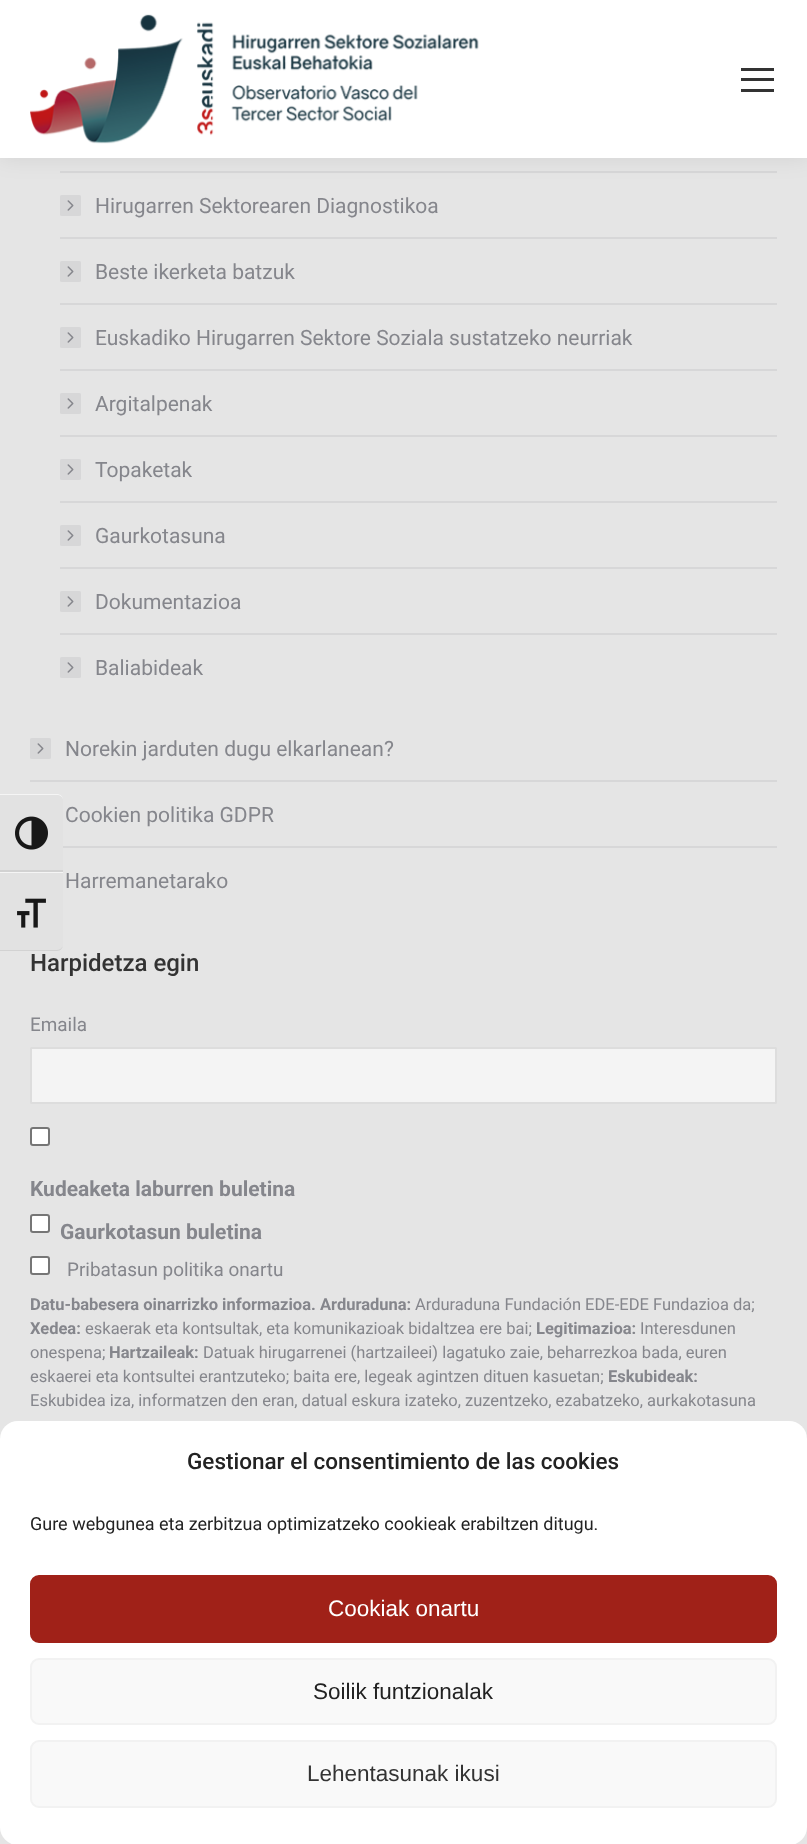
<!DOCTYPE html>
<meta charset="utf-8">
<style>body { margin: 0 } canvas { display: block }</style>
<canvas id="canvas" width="807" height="1844"></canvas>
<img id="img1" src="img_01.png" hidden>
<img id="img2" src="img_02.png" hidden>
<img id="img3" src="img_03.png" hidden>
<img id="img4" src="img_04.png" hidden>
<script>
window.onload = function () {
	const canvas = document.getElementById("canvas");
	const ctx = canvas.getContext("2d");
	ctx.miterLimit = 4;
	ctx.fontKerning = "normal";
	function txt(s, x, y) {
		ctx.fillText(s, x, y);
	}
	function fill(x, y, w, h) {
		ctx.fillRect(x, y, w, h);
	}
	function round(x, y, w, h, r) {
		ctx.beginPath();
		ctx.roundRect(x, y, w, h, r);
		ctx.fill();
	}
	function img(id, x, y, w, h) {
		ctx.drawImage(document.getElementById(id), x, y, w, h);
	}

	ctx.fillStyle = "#E5E5E5";
	fill(0, 0, 807, 1844);
	ctx.fillStyle = "#D7D7D8";
	fill(60, 171, 717, 2);
	ctx.fillStyle = "rgba(0, 0, 0, 0.07)";
	ctx.filter = "blur(11px)";
	ctx.beginPath();
	ctx.rect(-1, -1, 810, 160);
	ctx.fill();
	ctx.filter = "none";
	ctx.fillStyle = "#FFFFFF";
	fill(0, 0, 807, 158);
	img("img1", 30, 14, 449, 130);
	ctx.fillStyle = "#333333";
	fill(741, 68, 33, 3);
	fill(741, 78, 33, 3);
	fill(741, 89, 33, 3);
	ctx.fillStyle = "#D7D7D8";
	round(60, 195, 21, 21, 1.5);
	img("img2", 67, 200, 7, 11);
	fill(60, 237, 717, 2);
	round(60, 261, 21, 21, 1.5);
	img("img2", 67, 266, 7, 11);
	fill(60, 303, 717, 2);
	round(60, 327, 21, 21, 1.5);
	img("img2", 67, 332, 7, 11);
	fill(60, 369, 717, 2);
	round(60, 393, 21, 21, 1.5);
	img("img2", 67, 398, 7, 11);
	fill(60, 435, 717, 2);
	round(60, 459, 21, 21, 1.5);
	img("img2", 67, 464, 7, 11);
	fill(60, 501, 717, 2);
	round(60, 525, 21, 21, 1.5);
	img("img2", 67, 530, 7, 11);
	fill(60, 567, 717, 2);
	round(60, 591, 21, 21, 1.5);
	img("img2", 67, 596, 7, 11);
	fill(60, 633, 717, 2);
	round(60, 657, 21, 21, 1.5);
	img("img2", 67, 662, 7, 11);
	round(30, 738, 21, 21, 1.5);
	img("img2", 37, 743, 7, 11);
	fill(30, 780, 747, 2);
	fill(63, 846, 714, 2);
	ctx.fillStyle = "#F4F4F4";
	ctx.beginPath();
	ctx.roundRect(31, 1048, 745, 55, 0.5);
	ctx.fill();
	ctx.strokeStyle = "#DDDDDD";
	ctx.lineWidth = 2;
	ctx.stroke();
	ctx.fillStyle = "#FFFFFF";
	ctx.beginPath();
	ctx.roundRect(31, 1128, 18, 17, 2);
	ctx.fill();
	ctx.strokeStyle = "#767676";
	ctx.stroke();
	ctx.beginPath();
	ctx.roundRect(31, 1215, 18, 17, 2);
	ctx.fill();
	ctx.stroke();
	ctx.beginPath();
	ctx.roundRect(31, 1257, 18, 17, 2);
	ctx.fill();
	ctx.stroke();
	ctx.fillStyle = "#E2E2E2";
	ctx.beginPath();
	ctx.roundRect(0, 794, 63, 78, [0, 6, 0, 0]);
	ctx.fill();
	ctx.fillStyle = "#F5F5F5";
	ctx.beginPath();
	ctx.moveTo(0, 795);
	ctx.lineTo(57, 795);
	ctx.bezierCurveTo(60, 795, 63, 797, 63, 800);
	ctx.bezierCurveTo(63, 796, 60, 794, 57, 794);
	ctx.lineTo(0, 794);
	ctx.closePath();
	ctx.fill();
	ctx.fillStyle = "#D2D2D2";
	fill(0, 870, 63, 2);
	img("img3", 15, 816, 33, 34);
	ctx.fillStyle = "#E2E2E2";
	ctx.beginPath();
	ctx.roundRect(0, 872, 63, 79, [0, 0, 6, 0]);
	ctx.fill();
	ctx.fillStyle = "#F5F5F5";
	fill(0, 872, 63, 1);
	ctx.fillStyle = "#D2D2D2";
	ctx.beginPath();
	ctx.moveTo(0, 950);
	ctx.lineTo(0, 951);
	ctx.lineTo(57, 951);
	ctx.bezierCurveTo(60, 951, 63, 948, 63, 945);
	ctx.bezierCurveTo(63, 947, 60, 950, 57, 950);
	ctx.closePath();
	ctx.fill();
	img("img4", 17, 898, 29, 30);
	ctx.fillStyle = "#FFFFFF";
	round(0, 1421, 807, 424, 18);
	ctx.fillStyle = "#A02118";
	ctx.beginPath();
	ctx.roundRect(31, 1576, 745, 66, 8);
	ctx.fill();
	ctx.strokeStyle = "#A02118";
	ctx.stroke();
	ctx.fillStyle = "#F9F9F9";
	ctx.beginPath();
	ctx.roundRect(31, 1659, 745, 65, 8);
	ctx.fill();
	ctx.strokeStyle = "#F2F2F2";
	ctx.stroke();
	ctx.beginPath();
	ctx.roundRect(31, 1741, 745, 66, 8);
	ctx.fill();
	ctx.stroke();
	ctx.font = "21px Roboto";
	ctx.fillStyle = "#85868C";
	txt("Hirugarren Sektorearen Diagnostikoa", 95, 213);
	txt("Beste ikerketa batzuk", 95, 279);
	txt("Euskadiko Hirugarren Sektore Soziala sustatzeko neurriak", 95, 345);
	txt("Argitalpenak", 95, 411);
	txt("Topaketak", 95, 477);
	txt("Gaurkotasuna", 95, 543);
	txt("Dokumentazioa", 95, 609);
	txt("Baliabideak", 95, 675);
	txt("Norekin jarduten dugu elkarlanean?", 65, 756);
	txt("Cookien politika GDPR", 65, 822);
	txt("Harremanetarako", 65, 888);
	ctx.font = "500 24px Roboto";
	ctx.fillStyle = "#333333";
	txt("Harpidetza egin", 30, 971);
	ctx.font = "18.9px Roboto";
	ctx.fillStyle = "#85868C";
	txt("Emaila", 30, 1031);
	ctx.font = "bold 21px Roboto";
	txt("Kudeaketa laburren buletina", 30, 1196);
	txt("Gaurkotasun buletina", 60, 1239);
	ctx.font = "18.9px Roboto";
	txt("Pribatasun politika onartu", 67, 1276);
	ctx.font = "bold 16.5px Roboto";
	txt("Datu-babesera oinarrizko informazioa. Arduraduna:", 30, 1310);
	ctx.font = "16.5px Roboto";
	txt("Arduraduna Fundación EDE-EDE Fundazioa da;", 415, 1310);
	ctx.font = "bold 16.5px Roboto";
	txt("Xedea:", 30, 1334);
	ctx.font = "16.5px Roboto";
	txt("eskaerak eta kontsultak, eta komunikazioak bidaltzea ere bai;", 85, 1334);
	ctx.font = "bold 16.5px Roboto";
	txt("Legitimazioa:", 536, 1334);
	ctx.font = "16.5px Roboto";
	txt("Interesdunen", 640, 1334);
	txt("onespena;", 30, 1358);
	ctx.font = "bold 16.5px Roboto";
	txt("Hartzaileak:", 109, 1358);
	ctx.font = "16.5px Roboto";
	txt("Datuak hirugarrenei (hartzaileei) lagatuko zaie, beharrezkoa bada, euren", 203, 1358);
	txt("eskaerei eta kontsultei erantzuteko; baita ere, legeak agintzen dituen kasuetan;", 30, 1382);
	ctx.font = "bold 16.5px Roboto";
	txt("Eskubideak:", 608, 1382);
	ctx.font = "16.5px Roboto";
	txt("Eskubidea iza, informatzen den eran, datual eskura izateko, zuzentzeko, ezabatzeko, aurkakotasuna", 30, 1406);
	ctx.font = "500 22.5px Roboto";
	ctx.fillStyle = "#222222";
	txt("Gestionar el consentimiento de las cookies", 187, 1469);
	ctx.font = "18px Roboto";
	txt("Gure webgunea eta zerbitzua optimizatzeko cookieak erabiltzen ditugu.", 30, 1530);
	ctx.font = "22.5px Liberation Sans";
	ctx.fillStyle = "#FFFFFF";
	txt("Cookiak onartu", 328, 1616);
	ctx.fillStyle = "#222222";
	txt("Soilik funtzionalak", 313, 1699);
	ctx.fillStyle = "#333333";
	txt("Lehentasunak ikusi", 307, 1781);
};
</script>
